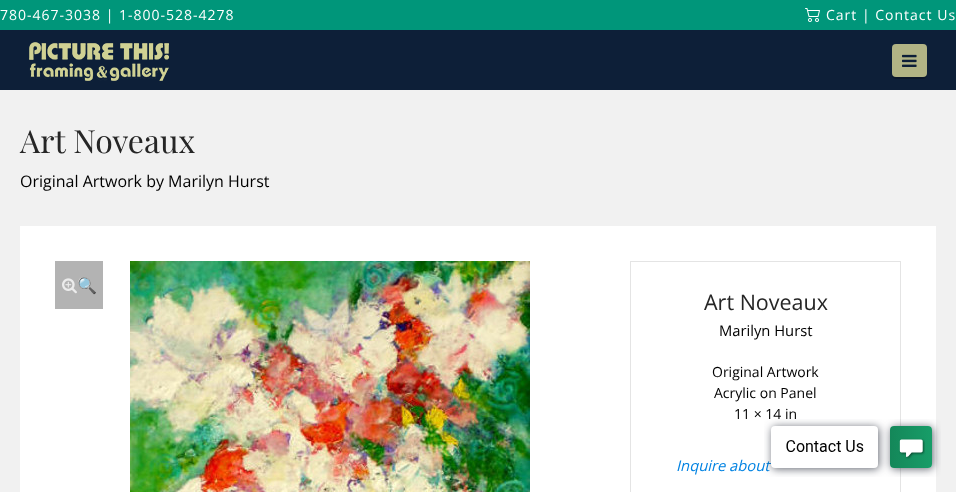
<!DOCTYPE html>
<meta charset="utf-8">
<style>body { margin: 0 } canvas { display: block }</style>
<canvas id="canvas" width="956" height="492"></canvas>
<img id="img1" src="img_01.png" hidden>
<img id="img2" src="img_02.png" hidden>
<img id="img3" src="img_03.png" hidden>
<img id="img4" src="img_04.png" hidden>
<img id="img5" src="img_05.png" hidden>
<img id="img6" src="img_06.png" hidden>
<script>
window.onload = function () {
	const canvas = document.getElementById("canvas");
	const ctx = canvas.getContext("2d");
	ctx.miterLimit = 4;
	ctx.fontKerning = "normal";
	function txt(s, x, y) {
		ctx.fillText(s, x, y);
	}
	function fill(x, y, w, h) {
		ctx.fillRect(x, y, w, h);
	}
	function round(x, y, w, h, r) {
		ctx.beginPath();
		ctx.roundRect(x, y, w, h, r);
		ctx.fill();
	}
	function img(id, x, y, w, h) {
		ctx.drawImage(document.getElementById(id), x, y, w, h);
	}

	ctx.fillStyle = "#F1F1F1";
	fill(0, 0, 956, 492);
	ctx.fillStyle = "#00967A";
	fill(0, 0, 956, 30);
	img("img1", 805, 8, 15, 14);
	ctx.fillStyle = "#0D1F38";
	fill(0, 30, 956, 60);
	img("img2", 29, 42, 140, 39);
	ctx.fillStyle = "#0A172A";
	ctx.beginPath();
	ctx.moveTo(892, 73);
	ctx.bezierCurveTo(892, 79.5, 894.5, 79, 900.5, 79);
	ctx.lineTo(918.5, 79);
	ctx.bezierCurveTo(924.5, 79, 927, 79.5, 927, 73);
	ctx.bezierCurveTo(927, 75, 925, 77, 923, 77);
	ctx.lineTo(896, 77);
	ctx.bezierCurveTo(894, 77, 892, 75, 892, 73);
	ctx.closePath();
	ctx.fill();
	ctx.fillStyle = "#B1B485";
	round(892, 44, 35, 33, 4);
	img("img3", 902, 54, 15, 13);
	ctx.fillStyle = "#FFFFFF";
	fill(20, 226, 916, 266);
	ctx.fillStyle = "#B3B3B3";
	fill(55, 261, 48, 48);
	img("img4", 62, 278, 15, 16);
	img("img5", 130, 261, 400, 231);
	ctx.strokeStyle = "#E4E4E4";
	ctx.strokeRect(630.5, 261.5, 270, 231);
	ctx.letterSpacing = "1px";
	ctx.font = "14px Open Sans";
	ctx.fillStyle = "#FFFFFF";
	txt("780-467-3038 | 1-800-528-4278", 0, 20);
	txt("Cart | Contact Us", 826, 20);
	ctx.letterSpacing = "0px";
	ctx.font = "32px Playfair Display";
	ctx.fillStyle = "#262626";
	txt("Art Noveaux", 20, 153);
	ctx.font = "16px Open Sans";
	ctx.fillStyle = "#000000";
	txt("Original Artwork by Marilyn Hurst", 20, 187);
	ctx.font = "16px Noto Color Emoji";
	ctx.fillStyle = "#ECECEC";
	txt("🔍", 77, 291);
	ctx.font = "21.5px Open Sans";
	ctx.fillStyle = "#262626";
	txt("Art Noveaux", 704, 310);
	ctx.font = "14.75px Open Sans";
	ctx.fillStyle = "#000000";
	txt("Marilyn Hurst", 719, 336);
	ctx.font = "14px Open Sans";
	txt("Original Artwork", 712, 377);
	txt("Acrylic on Panel", 714, 398);
	txt("11 × 14 in", 734, 419);
	ctx.font = "italic 14.75px Open Sans";
	ctx.fillStyle = "#0082E2";
	txt("Inquire about", 676, 471);
	img("img6", 764, 419, 177, 58);
};
</script>
